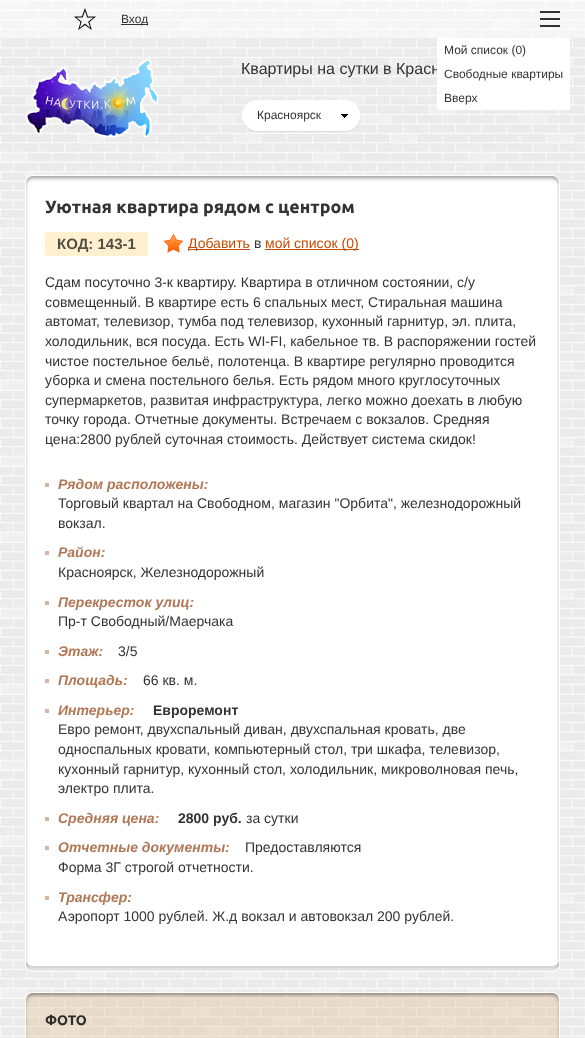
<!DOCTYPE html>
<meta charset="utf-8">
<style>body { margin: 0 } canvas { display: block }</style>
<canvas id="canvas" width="585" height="1038"></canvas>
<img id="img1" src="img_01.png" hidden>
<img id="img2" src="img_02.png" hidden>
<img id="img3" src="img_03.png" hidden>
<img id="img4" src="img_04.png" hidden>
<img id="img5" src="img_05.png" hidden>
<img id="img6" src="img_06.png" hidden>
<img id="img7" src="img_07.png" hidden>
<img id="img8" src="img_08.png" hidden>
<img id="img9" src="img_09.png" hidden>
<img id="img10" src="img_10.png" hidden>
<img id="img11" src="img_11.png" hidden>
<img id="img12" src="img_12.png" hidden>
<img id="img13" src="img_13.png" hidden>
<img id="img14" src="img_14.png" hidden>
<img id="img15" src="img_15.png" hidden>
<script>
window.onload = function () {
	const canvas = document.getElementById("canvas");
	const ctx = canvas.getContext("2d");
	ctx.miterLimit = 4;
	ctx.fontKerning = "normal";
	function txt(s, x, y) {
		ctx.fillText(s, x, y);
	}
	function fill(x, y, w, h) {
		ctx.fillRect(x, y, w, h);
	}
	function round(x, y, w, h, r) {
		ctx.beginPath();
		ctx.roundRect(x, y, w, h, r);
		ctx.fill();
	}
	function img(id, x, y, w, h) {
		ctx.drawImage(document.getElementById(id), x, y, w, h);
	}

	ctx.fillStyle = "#FFFFFF";
	fill(0, 0, 585, 1038);
	img("img1", 0, 0, 585, 1038);
	ctx.fillStyle = "rgba(255, 255, 255, 0.5)";
	fill(0, 0, 585, 38);
	img("img2", 74, 8, 22, 22);
	ctx.fillStyle = "#333333";
	fill(121, 24, 27, 1);
	fill(540, 11, 20, 2);
	fill(540, 18, 20, 2);
	fill(540, 25, 20, 2);
	img("img3", 0, 38, 585, 1);
	img("img4", 25, 58, 134, 80);
	img("img5", 242, 100, 15, 32);
	img("img6", 341, 100, 19, 32);
	img("img7", 257, 100, 84, 32);
	img("img8", 25, 189, 535, 773);
	img("img9", 25, 175, 535, 14);
	ctx.fillStyle = "#FFFFFF";
	fill(29, 189, 527, 773);
	img("img10", 25, 962, 535, 10);
	ctx.fillStyle = "#FFF1CF";
	round(45, 232, 103, 24, 2);
	img("img11", 163, 233, 20, 20);
	ctx.fillStyle = "#C74C00";
	fill(188, 249, 62, 1);
	fill(265, 249, 94, 1);
	ctx.fillStyle = "#D5B5A3";
	fill(45, 483, 4, 4);
	fill(45, 551, 4, 4);
	fill(45, 601, 4, 4);
	fill(45, 650, 4, 4);
	fill(45, 679, 4, 4);
	fill(45, 709, 4, 4);
	fill(45, 817, 4, 4);
	fill(45, 846, 4, 4);
	fill(45, 896, 4, 4);
	img("img12", 25, 992, 535, 13);
	img("img13", 35, 992, 515, 13);
	img("img14", 25, 1005, 535, 33);
	img("img15", 35, 1005, 515, 33);
	ctx.font = "12px Liberation Sans";
	ctx.fillStyle = "#333333";
	txt("Вход", 121, 23);
	ctx.font = "16px Liberation Sans";
	txt("Квартиры на сутки в Красн", 241, 74);
	ctx.fillStyle = "#FFFFFF";
	fill(437, 38, 133, 72);
	ctx.font = "12px Liberation Sans";
	ctx.fillStyle = "#333333";
	txt("Вверх", 444, 102);
	txt("Свободные квартиры", 444, 78);
	txt("Мой список (0)", 444, 54);
	txt("Красноярск", 257, 119);
	ctx.font = "bold 18px Ubuntu";
	txt("Уютная квартира рядом с центром", 45, 213);
	ctx.font = "bold 15px Liberation Sans";
	ctx.fillStyle = "#544F44";
	txt("КОД: 143-1", 57, 249);
	ctx.font = "14px Liberation Sans";
	ctx.fillStyle = "#C74C00";
	txt("Добавить", 188, 248);
	ctx.fillStyle = "#333333";
	txt("в", 254, 248);
	ctx.fillStyle = "#C74C00";
	txt("мой список (0)", 265, 248);
	ctx.fillStyle = "#333333";
	txt("Сдам посуточно 3-к квартиру. Квартира в отличном состоянии, с/у", 45, 287);
	txt("совмещенный. В квартире есть 6 спальных мест, Стиральная машина", 45, 307);
	txt("автомат, телевизор, тумба под телевизор, кухонный гарнитур, эл. плита,", 45, 326);
	txt("холодильник, вся посуда. Есть WI-FI, кабельное тв. В распоряжении гостей", 45, 346);
	txt("чистое постельное бельё, полотенца. В квартире регулярно проводится", 45, 366);
	txt("уборка и смена постельного белья. Есть рядом много круглосуточных", 45, 385);
	txt("супермаркетов, развитая инфраструктура, легко можно доехать в любую", 45, 405);
	txt("точку города. Отчетные документы. Встречаем с вокзалов. Средняя", 45, 424);
	txt("цена:2800 рублей суточная стоимость. Действует система скидок!", 45, 444);
	ctx.font = "italic bold 14px Liberation Sans";
	ctx.fillStyle = "#B17755";
	txt("Рядом расположены:", 58, 489);
	ctx.font = "14px Liberation Sans";
	ctx.fillStyle = "#333333";
	txt("Торговый квартал на Свободном, магазин \"Орбита\", железнодорожный", 58, 508);
	txt("вокзал.", 58, 528);
	ctx.font = "italic bold 14px Liberation Sans";
	ctx.fillStyle = "#B17755";
	txt("Район:", 58, 557);
	ctx.font = "14px Liberation Sans";
	ctx.fillStyle = "#333333";
	txt("Красноярск, Железнодорожный", 58, 577);
	ctx.font = "italic bold 14px Liberation Sans";
	ctx.fillStyle = "#B17755";
	txt("Перекресток улиц:", 58, 607);
	ctx.font = "14px Liberation Sans";
	ctx.fillStyle = "#333333";
	txt("Пр-т Свободный/Маерчака", 58, 626);
	ctx.font = "italic bold 14px Liberation Sans";
	ctx.fillStyle = "#B17755";
	txt("Этаж:", 58, 656);
	ctx.font = "14px Liberation Sans";
	ctx.fillStyle = "#333333";
	txt("3/5", 118, 656);
	ctx.font = "italic bold 14px Liberation Sans";
	ctx.fillStyle = "#B17755";
	txt("Площадь:", 58, 685);
	ctx.font = "14px Liberation Sans";
	ctx.fillStyle = "#333333";
	txt("66 кв. м.", 143, 685);
	ctx.font = "italic bold 14px Liberation Sans";
	ctx.fillStyle = "#B17755";
	txt("Интерьер:", 58, 715);
	ctx.font = "bold 14px Liberation Sans";
	ctx.fillStyle = "#333333";
	txt("Евроремонт", 153, 715);
	ctx.font = "14px Liberation Sans";
	txt("Евро ремонт, двухспальный диван, двухспальная кровать, две", 58, 734);
	txt("односпальных кровати, компьютерный стол, три шкафа, телевизор,", 58, 754);
	txt("кухонный гарнитур, кухонный стол, холодильник, микроволновая печь,", 58, 774);
	txt("электро плита.", 58, 793);
	ctx.font = "italic bold 14px Liberation Sans";
	ctx.fillStyle = "#B17755";
	txt("Средняя цена:", 58, 823);
	ctx.font = "bold 14px Liberation Sans";
	ctx.fillStyle = "#333333";
	txt("2800 руб.", 178, 823);
	ctx.font = "14px Liberation Sans";
	txt("за сутки", 246, 823);
	ctx.font = "italic bold 14px Liberation Sans";
	ctx.fillStyle = "#B17755";
	txt("Отчетные документы:", 58, 852);
	ctx.font = "14px Liberation Sans";
	ctx.fillStyle = "#333333";
	txt("Предоставляются", 245, 852);
	txt("Форма 3Г строгой отчетности.", 58, 872);
	ctx.font = "italic bold 14px Liberation Sans";
	ctx.fillStyle = "#B17755";
	txt("Трансфер:", 58, 902);
	ctx.font = "14px Liberation Sans";
	ctx.fillStyle = "#333333";
	txt("Аэропорт 1000 рублей. Ж.д вокзал и автовокзал 200 рублей.", 58, 921);
	ctx.font = "bold 14px Ubuntu";
	ctx.fillStyle = "#2E2C29";
	txt("ФОТО", 45, 1025);
};
</script>
